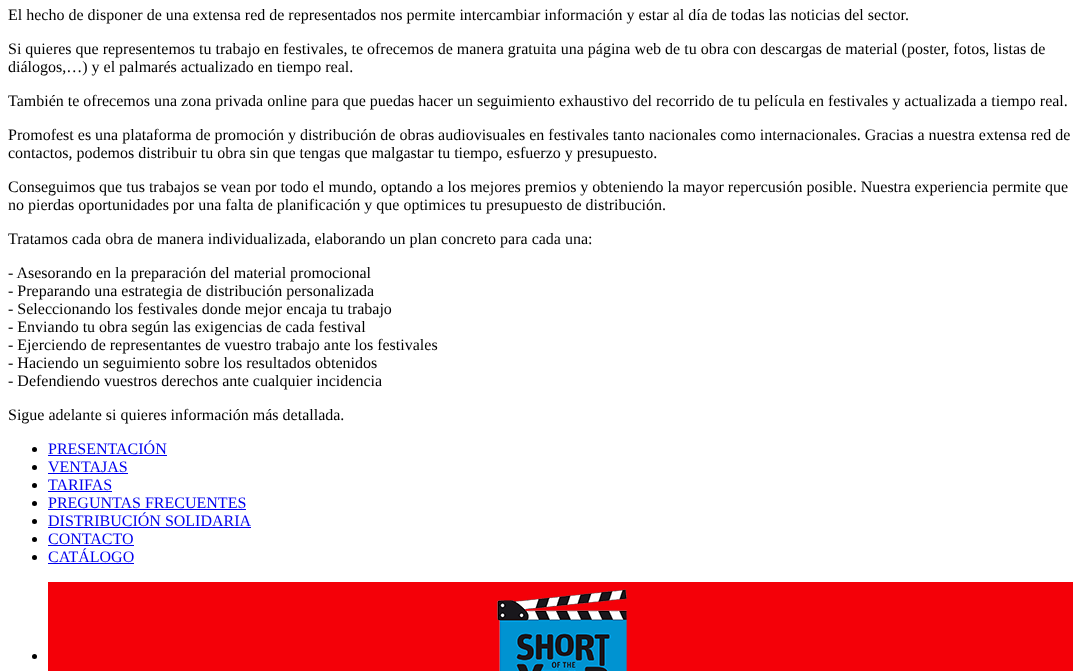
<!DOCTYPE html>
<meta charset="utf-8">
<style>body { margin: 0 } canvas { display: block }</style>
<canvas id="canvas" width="1081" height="671"></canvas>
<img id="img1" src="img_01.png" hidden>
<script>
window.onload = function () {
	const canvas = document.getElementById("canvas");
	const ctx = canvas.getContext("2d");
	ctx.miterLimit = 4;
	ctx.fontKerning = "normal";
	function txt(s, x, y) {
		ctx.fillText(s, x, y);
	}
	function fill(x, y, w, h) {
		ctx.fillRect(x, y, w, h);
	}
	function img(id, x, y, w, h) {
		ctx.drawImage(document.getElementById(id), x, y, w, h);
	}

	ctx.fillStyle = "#FFFFFF";
	fill(0, 0, 1081, 671);
	ctx.fillStyle = "#000000";
	ctx.beginPath();
	ctx.arc(34.5, 449.5, 2.5, 0, Math.PI * 2);
	ctx.fill();
	ctx.fillStyle = "#0000EE";
	fill(48, 455, 119, 1);
	ctx.fillStyle = "#000000";
	ctx.beginPath();
	ctx.arc(34.5, 467.5, 2.5, 0, Math.PI * 2);
	ctx.fill();
	ctx.fillStyle = "#0000EE";
	fill(48, 473, 80, 1);
	ctx.fillStyle = "#000000";
	ctx.beginPath();
	ctx.arc(34.5, 485.5, 2.5, 0, Math.PI * 2);
	ctx.fill();
	ctx.fillStyle = "#0000EE";
	fill(48, 491, 64, 1);
	ctx.fillStyle = "#000000";
	ctx.beginPath();
	ctx.arc(34.5, 503.5, 2.5, 0, Math.PI * 2);
	ctx.fill();
	ctx.fillStyle = "#0000EE";
	fill(48, 509, 198, 1);
	ctx.fillStyle = "#000000";
	ctx.beginPath();
	ctx.arc(34.5, 521.5, 2.5, 0, Math.PI * 2);
	ctx.fill();
	ctx.fillStyle = "#0000EE";
	fill(48, 527, 203, 1);
	ctx.fillStyle = "#000000";
	ctx.beginPath();
	ctx.arc(34.5, 539.5, 2.5, 0, Math.PI * 2);
	ctx.fill();
	ctx.fillStyle = "#0000EE";
	fill(48, 545, 86, 1);
	ctx.fillStyle = "#000000";
	ctx.beginPath();
	ctx.arc(34.5, 557.5, 2.5, 0, Math.PI * 2);
	ctx.fill();
	ctx.fillStyle = "#0000EE";
	fill(48, 563, 86, 1);
	ctx.fillStyle = "#F40008";
	fill(48, 582, 1025, 89);
	ctx.fillStyle = "#000000";
	ctx.beginPath();
	ctx.arc(34.5, 656.5, 2.5, 0, Math.PI * 2);
	ctx.fill();
	img("img1", 497, 589, 130, 82);
	ctx.font = "16px Liberation Serif";
	txt("El hecho de disponer de una extensa red de representados nos permite intercambiar información y estar al día de todas las noticias del sector.", 8, 20);
	txt("Si quieres que representemos tu trabajo en festivales, te ofrecemos de manera gratuita una página web de tu obra con descargas de material (poster, fotos, listas de", 8, 54);
	txt("diálogos,…) y el palmarés actualizado en tiempo real.", 8, 72);
	txt("También te ofrecemos una zona privada online para que puedas hacer un seguimiento exhaustivo del recorrido de tu película en festivales y actualizada a tiempo real.", 8, 106);
	txt("Promofest es una plataforma de promoción y distribución de obras audiovisuales en festivales tanto nacionales como internacionales. Gracias a nuestra extensa red de", 8, 140);
	txt("contactos, podemos distribuir tu obra sin que tengas que malgastar tu tiempo, esfuerzo y presupuesto.", 8, 158);
	txt("Conseguimos que tus trabajos se vean por todo el mundo, optando a los mejores premios y obteniendo la mayor repercusión posible. Nuestra experiencia permite que", 8, 192);
	txt("no pierdas oportunidades por una falta de planificación y que optimices tu presupuesto de distribución.", 8, 210);
	txt("Tratamos cada obra de manera individualizada, elaborando un plan concreto para cada una:", 8, 244);
	txt("- Asesorando en la preparación del material promocional", 8, 278);
	txt("- Preparando una estrategia de distribución personalizada", 8, 296);
	txt("- Seleccionando los festivales donde mejor encaja tu trabajo", 8, 314);
	txt("- Enviando tu obra según las exigencias de cada festival", 8, 332);
	txt("- Ejerciendo de representantes de vuestro trabajo ante los festivales", 8, 350);
	txt("- Haciendo un seguimiento sobre los resultados obtenidos", 8, 368);
	txt("- Defendiendo vuestros derechos ante cualquier incidencia", 8, 386);
	txt("Sigue adelante si quieres información más detallada.", 8, 420);
	ctx.fillStyle = "#0000EE";
	txt("PRESENTACIÓN", 48, 454);
	txt("VENTAJAS", 48, 472);
	txt("TARIFAS", 48, 490);
	txt("PREGUNTAS FRECUENTES", 48, 508);
	txt("DISTRIBUCIÓN SOLIDARIA", 48, 526);
	txt("CONTACTO", 48, 544);
	txt("CATÁLOGO", 48, 562);
};
</script>
